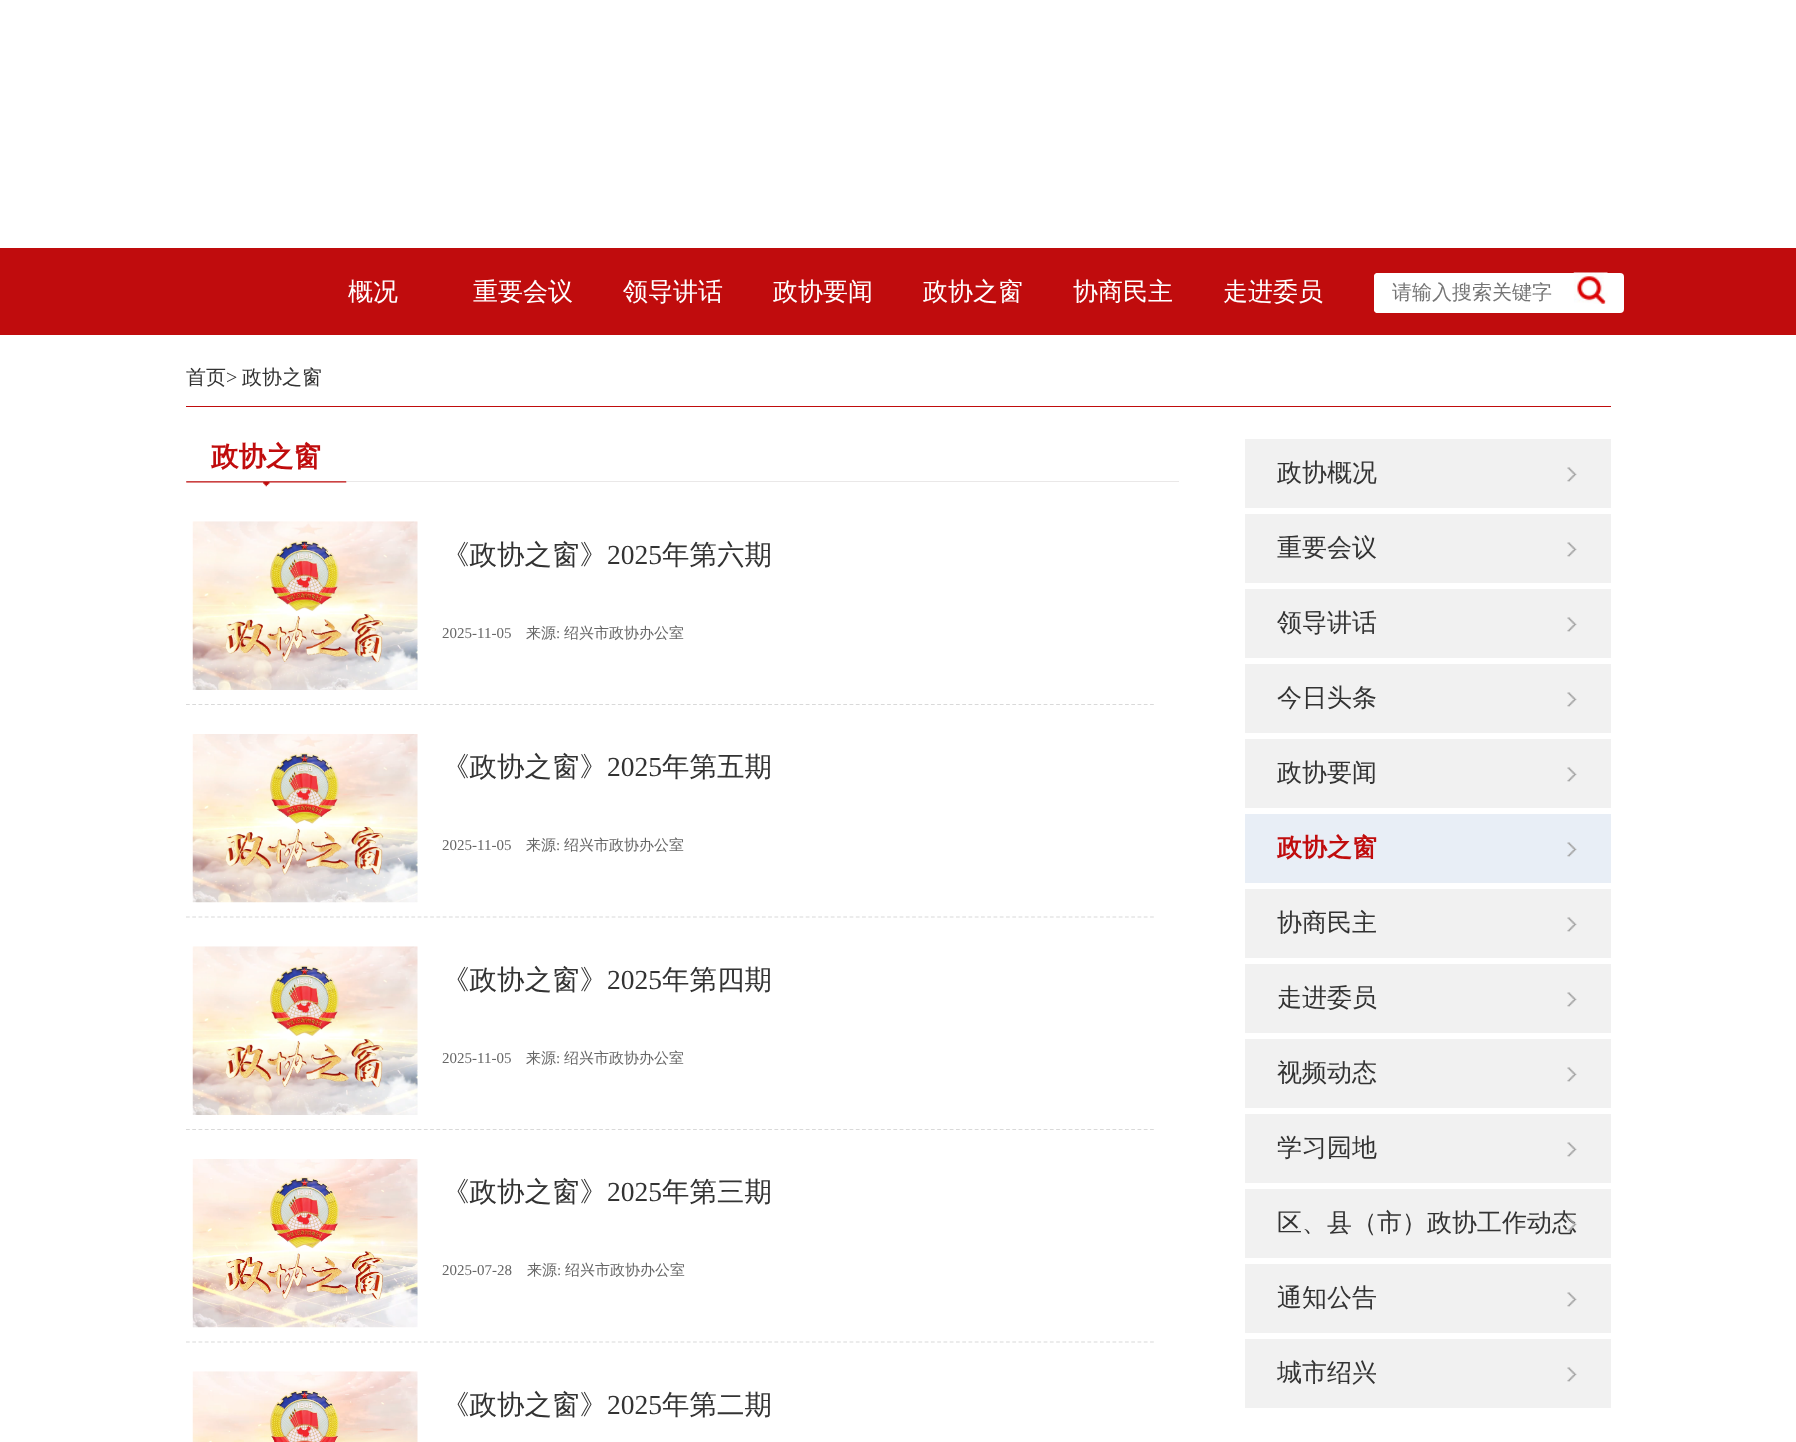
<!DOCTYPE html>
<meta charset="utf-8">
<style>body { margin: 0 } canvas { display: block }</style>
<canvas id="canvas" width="1796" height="1442"></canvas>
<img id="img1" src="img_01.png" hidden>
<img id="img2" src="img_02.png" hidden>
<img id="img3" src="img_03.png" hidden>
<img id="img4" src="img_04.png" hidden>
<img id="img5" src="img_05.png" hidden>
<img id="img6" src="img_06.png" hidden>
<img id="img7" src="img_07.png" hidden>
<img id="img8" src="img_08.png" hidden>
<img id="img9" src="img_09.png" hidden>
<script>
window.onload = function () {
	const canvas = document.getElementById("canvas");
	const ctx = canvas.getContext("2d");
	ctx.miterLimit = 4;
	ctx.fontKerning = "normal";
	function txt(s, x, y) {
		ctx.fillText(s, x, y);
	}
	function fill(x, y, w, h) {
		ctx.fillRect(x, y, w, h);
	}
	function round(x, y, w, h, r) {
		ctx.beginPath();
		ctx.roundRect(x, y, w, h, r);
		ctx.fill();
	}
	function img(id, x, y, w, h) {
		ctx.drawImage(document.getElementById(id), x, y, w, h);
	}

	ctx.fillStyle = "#FFFFFF";
	fill(0, 0, 1796, 1442);
	ctx.fillStyle = "#C00C0D";
	fill(0, 248, 1796, 87);
	ctx.fillStyle = "#FFFFFF";
	round(1374, 273, 250, 40, 4);
	round(1374, 273, 200, 40, 4);
	img("img1", 1573, 272, 35, 32);
	ctx.fillStyle = "#C00C0D";
	fill(186, 406, 1425, 1);
	ctx.fillStyle = "#EAE8E8";
	fill(186, 481, 993, 1);
	img("img2", 186, 481, 161, 6);
	ctx.beginPath();
	ctx.moveTo(186, 704.5);
	ctx.lineTo(1154, 704.5);
	ctx.strokeStyle = "#D9D9D9";
	ctx.lineWidth = 1.2;
	ctx.setLineDash([3.75, 2.51]);
	ctx.stroke();
	img("img3", 192, 521, 226, 169);
	ctx.beginPath();
	ctx.moveTo(186, 917);
	ctx.lineTo(1154, 917);
	ctx.stroke();
	img("img4", 192, 734, 226, 169);
	ctx.beginPath();
	ctx.moveTo(186, 1129.5);
	ctx.lineTo(1154, 1129.5);
	ctx.stroke();
	img("img3", 192, 946, 226, 169);
	ctx.beginPath();
	ctx.moveTo(186, 1342);
	ctx.lineTo(1154, 1342);
	ctx.stroke();
	img("img5", 192, 1159, 226, 169);
	img("img6", 192, 1371, 226, 71);
	ctx.fillStyle = "#F1F1F1";
	fill(1245, 439, 366, 69);
	img("img7", 1567, 467, 10, 15);
	fill(1245, 514, 366, 69);
	img("img7", 1567, 542, 10, 15);
	fill(1245, 589, 366, 69);
	img("img7", 1567, 617, 10, 15);
	fill(1245, 664, 366, 69);
	img("img7", 1567, 692, 10, 15);
	fill(1245, 739, 366, 69);
	img("img7", 1567, 767, 10, 15);
	ctx.fillStyle = "#E8EEF6";
	fill(1245, 814, 366, 69);
	img("img8", 1567, 842, 10, 15);
	ctx.fillStyle = "#F1F1F1";
	fill(1245, 889, 366, 69);
	img("img7", 1567, 917, 10, 15);
	fill(1245, 964, 366, 69);
	img("img7", 1567, 992, 10, 15);
	fill(1245, 1039, 366, 69);
	img("img7", 1567, 1067, 10, 15);
	fill(1245, 1114, 366, 69);
	img("img7", 1567, 1142, 10, 15);
	fill(1245, 1189, 366, 69);
	fill(1245, 1264, 366, 69);
	img("img7", 1567, 1292, 10, 15);
	fill(1245, 1339, 366, 69);
	img("img7", 1567, 1367, 10, 15);
	ctx.font = "500 25px WenQuanYi Zen Hei";
	ctx.fillStyle = "#FFFFFF";
	txt("概况", 348, 300);
	txt("重要会议", 473, 300);
	txt("领导讲话", 623, 300);
	txt("政协要闻", 773, 300);
	txt("政协之窗", 923, 300);
	txt("协商民主", 1073, 300);
	txt("走进委员", 1223, 300);
	ctx.font = "500 20px WenQuanYi Zen Hei";
	ctx.fillStyle = "#757575";
	txt("请输入搜索关键字", 1392, 299);
	ctx.fillStyle = "#333333";
	txt("首页", 186, 384);
	ctx.font = "20px Liberation Serif";
	txt(">", 226, 384);
	ctx.font = "500 20px WenQuanYi Zen Hei";
	txt("政协之窗", 242, 384);
	ctx.font = "bold 27.5px WenQuanYi Zen Hei";
	ctx.fillStyle = "#C00C0D";
	txt("政协之窗", 211, 466);
	ctx.font = "500 27.5px WenQuanYi Zen Hei";
	ctx.fillStyle = "#333333";
	txt("《政协之窗》", 442, 564);
	ctx.font = "27.5px Liberation Serif";
	txt("2025", 607, 564);
	ctx.font = "500 27.5px WenQuanYi Zen Hei";
	txt("年第六期", 662, 564);
	ctx.font = "15px Liberation Serif";
	ctx.fillStyle = "#666666";
	txt("2025-11-05", 442, 638);
	ctx.font = "500 15px WenQuanYi Zen Hei";
	txt("来源", 526, 638);
	ctx.font = "15px Liberation Serif";
	txt(":", 556, 638);
	ctx.font = "500 15px WenQuanYi Zen Hei";
	txt("绍兴市政协办公室", 564, 638);
	ctx.font = "500 27.5px WenQuanYi Zen Hei";
	ctx.fillStyle = "#333333";
	txt("《政协之窗》", 442, 776);
	ctx.font = "27.5px Liberation Serif";
	txt("2025", 607, 776);
	ctx.font = "500 27.5px WenQuanYi Zen Hei";
	txt("年第五期", 662, 776);
	ctx.font = "15px Liberation Serif";
	ctx.fillStyle = "#666666";
	txt("2025-11-05", 442, 850);
	ctx.font = "500 15px WenQuanYi Zen Hei";
	txt("来源", 526, 850);
	ctx.font = "15px Liberation Serif";
	txt(":", 556, 850);
	ctx.font = "500 15px WenQuanYi Zen Hei";
	txt("绍兴市政协办公室", 564, 850);
	ctx.font = "500 27.5px WenQuanYi Zen Hei";
	ctx.fillStyle = "#333333";
	txt("《政协之窗》", 442, 989);
	ctx.font = "27.5px Liberation Serif";
	txt("2025", 607, 989);
	ctx.font = "500 27.5px WenQuanYi Zen Hei";
	txt("年第四期", 662, 989);
	ctx.font = "15px Liberation Serif";
	ctx.fillStyle = "#666666";
	txt("2025-11-05", 442, 1063);
	ctx.font = "500 15px WenQuanYi Zen Hei";
	txt("来源", 526, 1063);
	ctx.font = "15px Liberation Serif";
	txt(":", 556, 1063);
	ctx.font = "500 15px WenQuanYi Zen Hei";
	txt("绍兴市政协办公室", 564, 1063);
	ctx.font = "500 27.5px WenQuanYi Zen Hei";
	ctx.fillStyle = "#333333";
	txt("《政协之窗》", 442, 1201);
	ctx.font = "27.5px Liberation Serif";
	txt("2025", 607, 1201);
	ctx.font = "500 27.5px WenQuanYi Zen Hei";
	txt("年第三期", 662, 1201);
	ctx.font = "15px Liberation Serif";
	ctx.fillStyle = "#666666";
	txt("2025-07-28", 442, 1275);
	ctx.font = "500 15px WenQuanYi Zen Hei";
	txt("来源", 527, 1275);
	ctx.font = "15px Liberation Serif";
	txt(":", 557, 1275);
	ctx.font = "500 15px WenQuanYi Zen Hei";
	txt("绍兴市政协办公室", 565, 1275);
	ctx.font = "500 27.5px WenQuanYi Zen Hei";
	ctx.fillStyle = "#333333";
	txt("《政协之窗》", 442, 1414);
	ctx.font = "27.5px Liberation Serif";
	txt("2025", 607, 1414);
	ctx.font = "500 27.5px WenQuanYi Zen Hei";
	txt("年第二期", 662, 1414);
	ctx.font = "500 25px WenQuanYi Zen Hei";
	txt("政协概况", 1277, 481);
	txt("重要会议", 1277, 556);
	txt("领导讲话", 1277, 631);
	txt("今日头条", 1277, 706);
	txt("政协要闻", 1277, 781);
	ctx.font = "bold 25px WenQuanYi Zen Hei";
	ctx.fillStyle = "#C00C0D";
	txt("政协之窗", 1277, 856);
	ctx.font = "500 25px WenQuanYi Zen Hei";
	ctx.fillStyle = "#333333";
	txt("协商民主", 1277, 931);
	txt("走进委员", 1277, 1006);
	txt("视频动态", 1277, 1081);
	txt("学习园地", 1277, 1156);
	txt("区、县（市）政协工作动态", 1277, 1231);
	img("img9", 1567, 1217, 10, 15);
	txt("通知公告", 1277, 1306);
	txt("城市绍兴", 1277, 1381);
};
</script>
